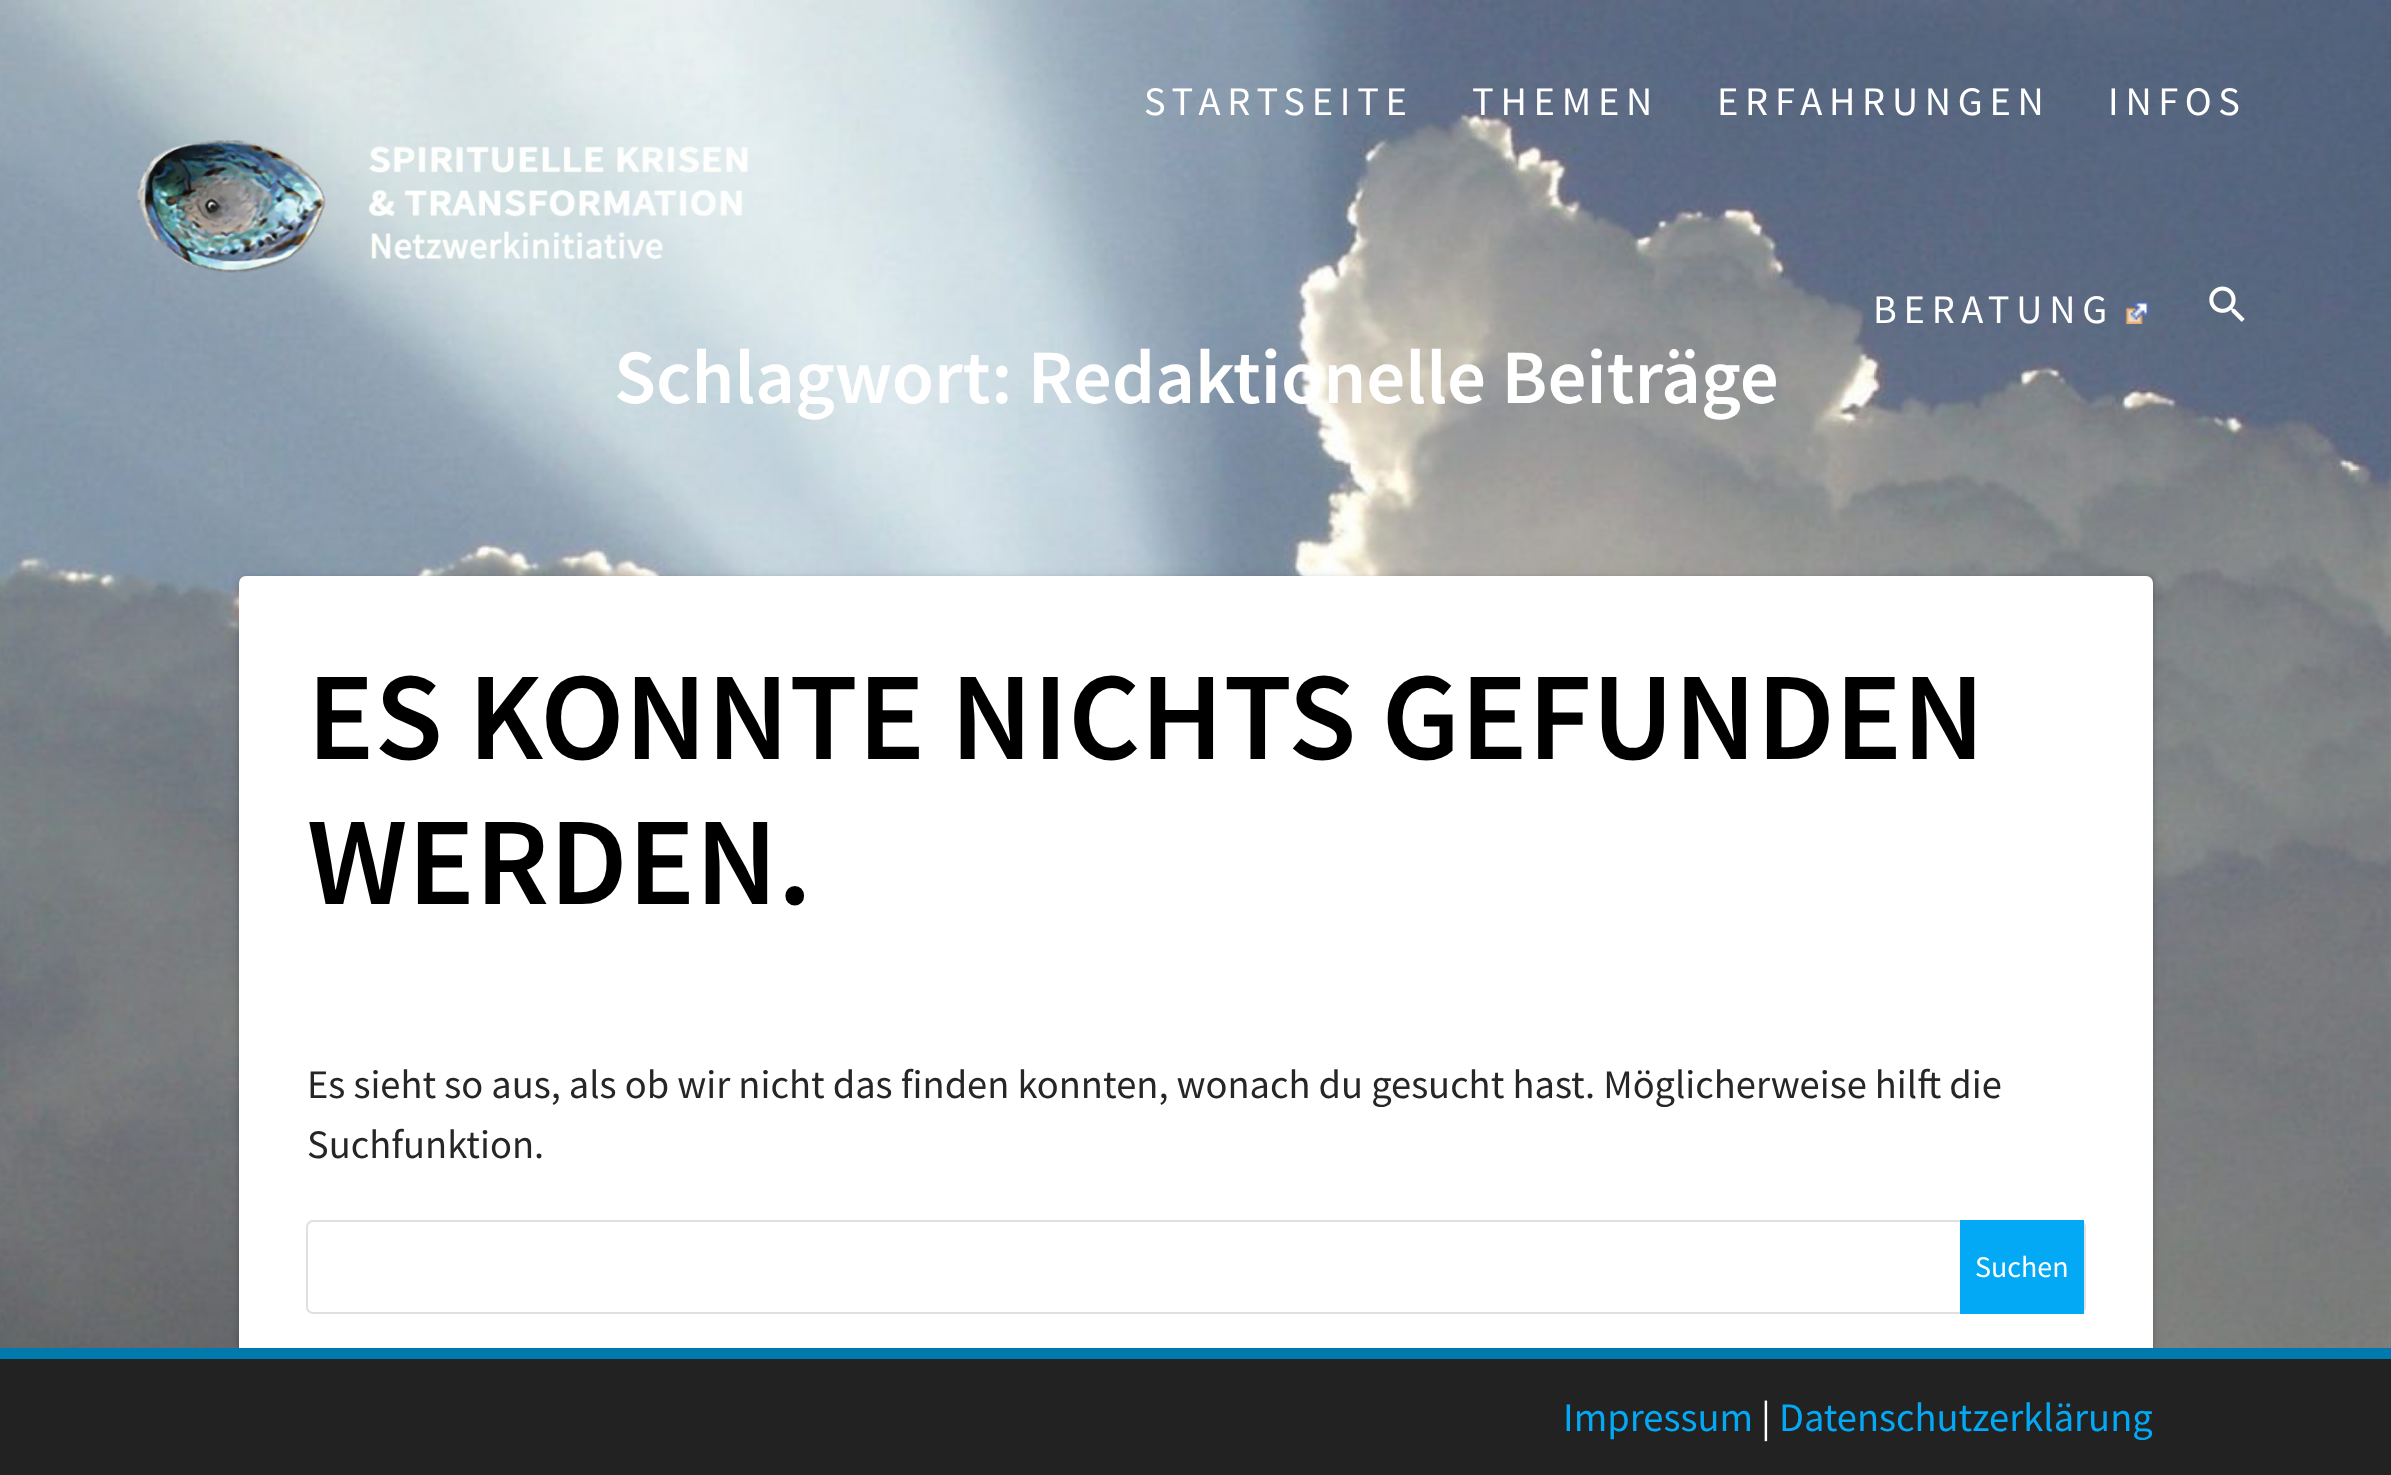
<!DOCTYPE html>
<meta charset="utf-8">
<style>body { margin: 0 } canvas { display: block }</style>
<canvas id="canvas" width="2391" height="1475"></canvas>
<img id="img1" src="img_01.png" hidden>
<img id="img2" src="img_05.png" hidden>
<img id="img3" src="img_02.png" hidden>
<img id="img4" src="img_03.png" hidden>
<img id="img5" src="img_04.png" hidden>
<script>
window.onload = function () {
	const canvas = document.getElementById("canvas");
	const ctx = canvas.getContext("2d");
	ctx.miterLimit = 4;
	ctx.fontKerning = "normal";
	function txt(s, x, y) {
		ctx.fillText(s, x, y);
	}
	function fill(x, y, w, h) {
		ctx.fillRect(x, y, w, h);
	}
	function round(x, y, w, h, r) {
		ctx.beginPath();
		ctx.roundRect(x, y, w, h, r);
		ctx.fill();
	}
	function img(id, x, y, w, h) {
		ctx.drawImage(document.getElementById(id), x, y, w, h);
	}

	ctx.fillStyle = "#FFFFFF";
	fill(0, 0, 2391, 1475);
	img("img1", 0, 0, 2391, 1348);
	img("img2", 0, 0, 2391, 464);
	img("img3", 137, 140, 611, 133);
	img("img4", 2125, 301, 24, 23);
	img("img5", 2209, 286, 36, 36);
	ctx.fillStyle = "rgba(0, 0, 0, 0.12)";
	ctx.filter = "blur(5.5px)";
	ctx.beginPath();
	ctx.roundRect(239, 578, 1914, 873, 7);
	ctx.fill();
	ctx.filter = "none";
	ctx.fillStyle = "rgba(0, 0, 0, 0.14)";
	ctx.filter = "blur(2px)";
	ctx.beginPath();
	ctx.roundRect(239, 578, 1914, 873, 7);
	ctx.fill();
	ctx.filter = "none";
	ctx.fillStyle = "#FFFFFF";
	round(239, 576, 1914, 873, 7);
	ctx.beginPath();
	ctx.roundRect(307, 1221, 1778, 92, 6);
	ctx.strokeStyle = "#E0E0E0";
	ctx.lineWidth = 2;
	ctx.stroke();
	ctx.fillStyle = "#03A9F4";
	fill(1960, 1220, 124, 94);
	ctx.fillStyle = "#222222";
	fill(0, 1359, 2391, 116);
	ctx.fillStyle = "#0079AD";
	fill(0, 1348, 2391, 11);
	ctx.letterSpacing = "6.75px";
	ctx.font = "40.5px Source Sans Pro";
	ctx.fillStyle = "#FFFFFF";
	txt("STARTSEITE", 1144, 115);
	txt("THEMEN", 1472, 115);
	txt("ERFAHRUNGEN", 1717, 115);
	txt("INFOS", 2108, 115);
	txt("BERATUNG", 1873, 323);
	ctx.letterSpacing = "0px";
	ctx.font = "600 77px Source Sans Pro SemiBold";
	txt("Schlagwort: Redaktionelle Beiträge", 614, 403);
	ctx.font = "600 125.5px Source Sans Pro SemiBold";
	ctx.fillStyle = "#000000";
	txt("ES KONNTE NICHTS GEFUNDEN", 307, 759);
	txt("WERDEN.", 307, 904);
	ctx.font = "40.5px Source Sans Pro";
	ctx.fillStyle = "#262626";
	txt("Es sieht so aus, als ob wir nicht das finden konnten, wonach du gesucht hast. Möglicherweise hilft die", 307, 1098);
	txt("Suchfunktion.", 307, 1158);
	ctx.font = "30px Source Sans Pro";
	ctx.fillStyle = "#FFFFFF";
	txt("Suchen", 1975, 1277);
	ctx.font = "40.5px Source Sans Pro";
	ctx.fillStyle = "#03A9F4";
	txt("Impressum", 1563, 1431);
	ctx.fillStyle = "#FFFFFF";
	txt("|", 1761, 1431);
	ctx.fillStyle = "#03A9F4";
	txt("Datenschutzerklärung", 1779, 1431);
};
</script>
